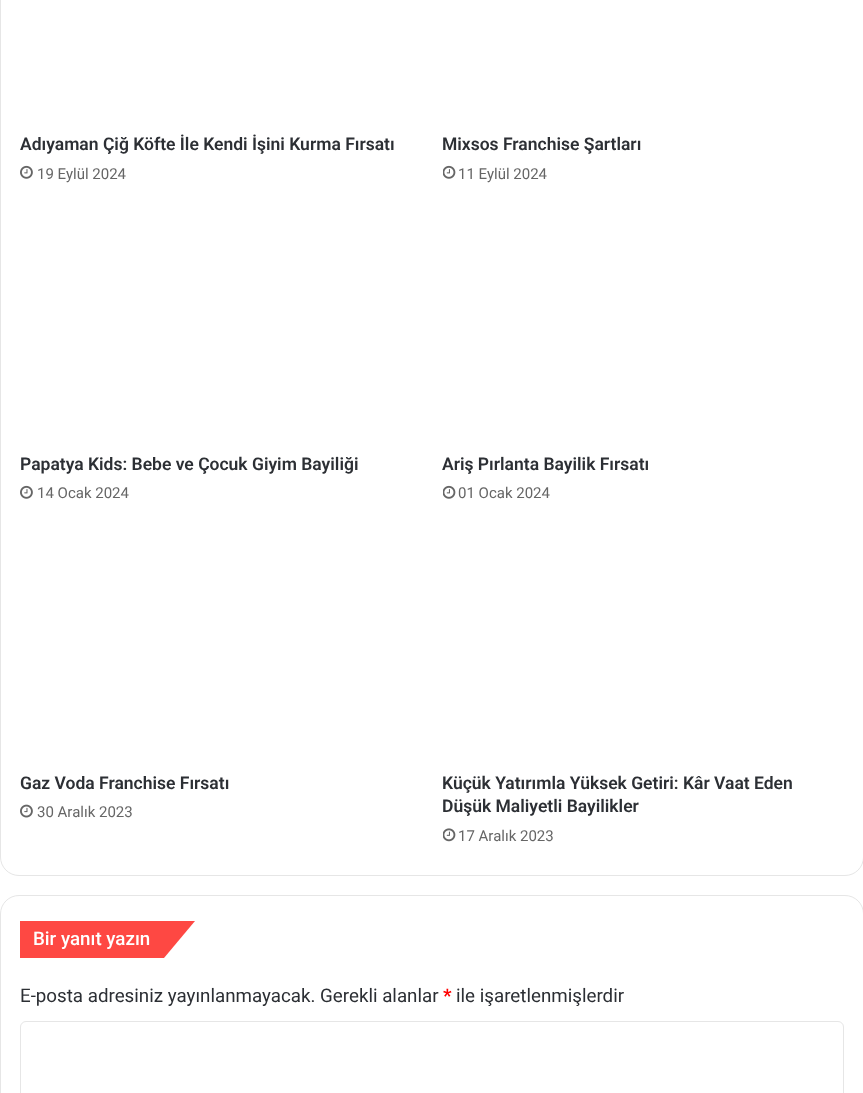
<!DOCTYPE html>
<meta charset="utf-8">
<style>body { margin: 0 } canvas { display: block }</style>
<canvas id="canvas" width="863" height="1093"></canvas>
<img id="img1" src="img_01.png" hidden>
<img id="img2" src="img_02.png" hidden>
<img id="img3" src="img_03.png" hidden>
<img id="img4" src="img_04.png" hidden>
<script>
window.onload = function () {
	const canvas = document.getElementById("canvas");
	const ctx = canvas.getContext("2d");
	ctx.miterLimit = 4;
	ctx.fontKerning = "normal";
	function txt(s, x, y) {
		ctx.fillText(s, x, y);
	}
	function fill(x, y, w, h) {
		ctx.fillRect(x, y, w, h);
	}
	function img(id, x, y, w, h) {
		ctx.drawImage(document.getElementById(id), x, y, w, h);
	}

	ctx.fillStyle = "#FFFFFF";
	fill(0, 0, 863, 1093);
	ctx.beginPath();
	ctx.roundRect(0.5, -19.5, 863, 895, 18.5);
	ctx.strokeStyle = "#E6E6E6";
	ctx.stroke();
	img("img1", 20, 165, 13, 14);
	img("img2", 443, 165, 13, 14);
	img("img1", 20, 485, 13, 14);
	img("img2", 443, 485, 13, 14);
	img("img3", 20, 804, 13, 14);
	img("img4", 443, 828, 13, 14);
	ctx.beginPath();
	ctx.roundRect(0.5, 895.5, 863, 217, 18.5);
	ctx.stroke();
	ctx.fillStyle = "#FE4843";
	fill(20, 921, 76, 37);
	ctx.beginPath();
	ctx.moveTo(96, 921);
	ctx.lineTo(195, 921);
	ctx.lineTo(164, 958);
	ctx.lineTo(65, 958);
	ctx.closePath();
	ctx.fill();
	ctx.beginPath();
	ctx.roundRect(20.5, 1021.5, 823, 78, 5.5);
	ctx.stroke();
	ctx.font = "600 17.5px Roboto";
	ctx.fillStyle = "#2C2F34";
	txt("Adıyaman Çiğ Köfte İle Kendi İşini Kurma Fırsatı", 20, 150);
	ctx.font = "15px Roboto";
	ctx.fillStyle = "#666666";
	txt("19 Eylül 2024", 37, 179);
	ctx.font = "600 17.5px Roboto";
	ctx.fillStyle = "#2C2F34";
	txt("Mixsos Franchise Şartları", 442, 150);
	ctx.font = "15px Roboto";
	ctx.fillStyle = "#666666";
	txt("11 Eylül 2024", 458, 179);
	ctx.font = "600 17.5px Roboto";
	ctx.fillStyle = "#2C2F34";
	txt("Papatya Kids: Bebe ve Çocuk Giyim Bayiliği", 20, 470);
	ctx.font = "15px Roboto";
	ctx.fillStyle = "#666666";
	txt("14 Ocak 2024", 37, 498);
	ctx.font = "600 17.5px Roboto";
	ctx.fillStyle = "#2C2F34";
	txt("Ariş Pırlanta Bayilik Fırsatı", 442, 470);
	ctx.font = "15px Roboto";
	ctx.fillStyle = "#666666";
	txt("01 Ocak 2024", 458, 498);
	ctx.font = "600 17.5px Roboto";
	ctx.fillStyle = "#2C2F34";
	txt("Gaz Voda Franchise Fırsatı", 20, 789);
	ctx.font = "15px Roboto";
	ctx.fillStyle = "#666666";
	txt("30 Aralık 2023", 37, 817);
	ctx.font = "600 17.5px Roboto";
	ctx.fillStyle = "#2C2F34";
	txt("Küçük Yatırımla Yüksek Getiri: Kâr Vaat Eden", 442, 789);
	txt("Düşük Maliyetli Bayilikler", 442, 812);
	ctx.font = "15px Roboto";
	ctx.fillStyle = "#666666";
	txt("17 Aralık 2023", 458, 841);
	ctx.font = "500 18.75px Roboto";
	ctx.fillStyle = "#FFFFFF";
	txt("Bir yanıt yazın", 33, 945);
	ctx.font = "18.75px Roboto";
	ctx.fillStyle = "#2C2F34";
	txt("E-posta adresiniz yayınlanmayacak. Gerekli alanlar", 20, 1002);
	ctx.font = "bold 18.75px Roboto";
	ctx.fillStyle = "#FF0000";
	txt("*", 443, 1002);
	ctx.font = "18.75px Roboto";
	ctx.fillStyle = "#2C2F34";
	txt("ile işaretlenmişlerdir", 456, 1002);
};
</script>
